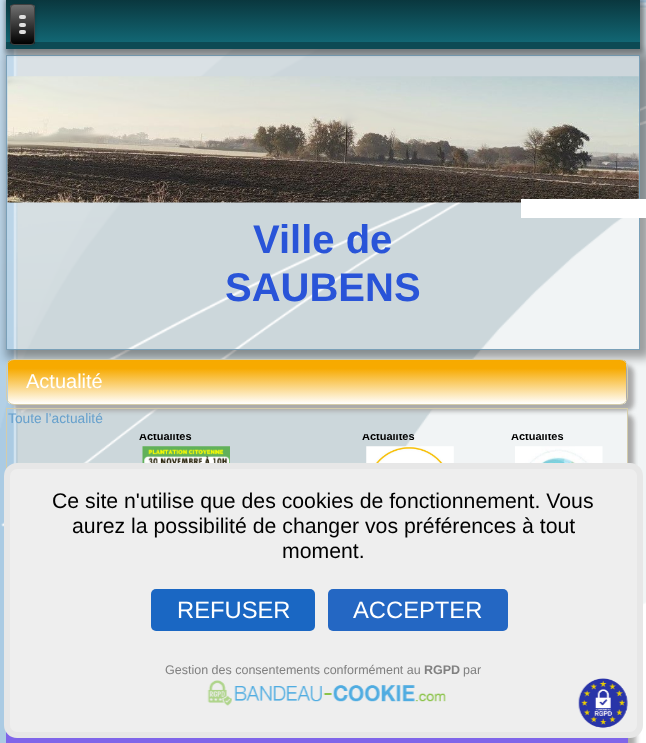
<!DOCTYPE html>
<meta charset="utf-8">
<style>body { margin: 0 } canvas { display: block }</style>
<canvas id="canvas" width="646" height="743"></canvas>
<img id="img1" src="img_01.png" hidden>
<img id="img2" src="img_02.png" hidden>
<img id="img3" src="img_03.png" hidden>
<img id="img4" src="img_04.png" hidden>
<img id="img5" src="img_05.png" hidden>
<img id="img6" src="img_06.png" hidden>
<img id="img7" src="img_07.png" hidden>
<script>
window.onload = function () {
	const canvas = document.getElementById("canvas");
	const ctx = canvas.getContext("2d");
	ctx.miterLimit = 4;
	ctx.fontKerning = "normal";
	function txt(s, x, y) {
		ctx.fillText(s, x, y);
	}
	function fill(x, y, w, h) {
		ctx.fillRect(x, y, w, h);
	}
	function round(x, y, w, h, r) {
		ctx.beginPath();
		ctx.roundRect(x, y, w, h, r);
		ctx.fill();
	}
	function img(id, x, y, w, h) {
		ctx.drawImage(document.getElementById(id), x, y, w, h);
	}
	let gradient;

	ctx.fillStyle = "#ABCBE3";
	fill(0, 0, 646, 743);
	img("img1", 0, 0, 646, 743);
	ctx.save();
	ctx.beginPath();
	ctx.moveTo(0, 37);
	ctx.lineTo(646, 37);
	ctx.lineTo(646, 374);
	ctx.lineTo(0, 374);
	ctx.closePath();
	ctx.moveTo(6, 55);
	ctx.lineTo(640, 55);
	ctx.lineTo(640, 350);
	ctx.lineTo(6, 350);
	ctx.closePath();
	ctx.clip("evenodd");
	ctx.fillStyle = "rgba(0, 0, 0, 0.35)";
	ctx.filter = "blur(5px)";
	ctx.beginPath();
	ctx.rect(6, 53, 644, 305);
	ctx.fill();
	ctx.filter = "none";
	ctx.restore();
	ctx.strokeStyle = "#7AA0B8";
	ctx.strokeRect(6.5, 55.5, 633, 294);
	ctx.fillStyle = "rgba(0, 0, 0, 0.4)";
	ctx.filter = "blur(2.5px)";
	ctx.beginPath();
	ctx.rect(5, -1, 639, 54);
	ctx.fill();
	ctx.filter = "none";
	gradient = ctx.createLinearGradient(323, 0, 323, 49);
	gradient.addColorStop(0, "#0A373E");
	gradient.addColorStop(0.85, "#126673");
	gradient.addColorStop(0.86, "#0D4A54");
	gradient.addColorStop(1, "#0D4A54");
	ctx.fillStyle = gradient;
	fill(6, 0, 634, 49);
	ctx.fillStyle = "rgba(0, 0, 0, 0.2)";
	ctx.filter = "blur(2px)";
	ctx.beginPath();
	ctx.roundRect(10, 4, 25, 41, 4);
	ctx.fill();
	ctx.filter = "none";
	ctx.save();
	ctx.beginPath();
	ctx.roundRect(10, 4, 25, 41, 4);
	ctx.clip();
	gradient = ctx.createLinearGradient(22, 5, 23, 44);
	gradient.addColorStop(0, "#707070");
	gradient.addColorStop(1, "#000000");
	ctx.fillStyle = gradient;
	fill(10, 5, 25, 39);
	ctx.restore();
	ctx.beginPath();
	ctx.roundRect(10.5, 4.5, 24, 40, 3.5);
	ctx.strokeStyle = "#404040";
	ctx.stroke();
	ctx.fillStyle = "#E0E0E0";
	round(19, 15, 7, 4, 2);
	round(19, 23, 7, 4, 2);
	round(19, 30, 7, 4, 2);
	img("img2", 7, 76, 632, 127);
	ctx.fillStyle = "#FFFFFF";
	fill(521, 199, 125, 19);
	ctx.fillStyle = "#AAAAAA";
	ctx.filter = "blur(2px)";
	ctx.beginPath();
	ctx.roundRect(13, 365, 621, 46, 8);
	ctx.fill();
	ctx.filter = "none";
	ctx.save();
	ctx.beginPath();
	ctx.roundRect(6, 359, 622, 46, 8);
	ctx.clip();
	gradient = ctx.createLinearGradient(317, 360, 317, 404);
	gradient.addColorStop(0, "#F7AA00");
	gradient.addColorStop(0.19, "#F7AA00");
	gradient.addColorStop(1, "#FFFFFF");
	ctx.fillStyle = gradient;
	fill(8, 360, 618, 44);
	ctx.restore();
	ctx.beginPath();
	ctx.roundRect(6.5, 359.5, 621, 45, 7.5);
	ctx.strokeStyle = "#D4CCAA";
	ctx.stroke();
	ctx.save();
	ctx.beginPath();
	ctx.rect(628, 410, 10, 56);
	ctx.clip();
	ctx.filter = "blur(2px)";
	ctx.beginPath();
	ctx.roundRect(13, 414, 621, 300, 8);
	ctx.fill();
	ctx.filter = "none";
	ctx.restore();
	ctx.strokeRect(6.5, 408.5, 621, 299);
	img("img3", 142, 446, 88, 17);
	img("img4", 366, 446, 88, 17);
	img("img5", 515, 446, 88, 17);
	ctx.filter = "blur(3px)";
	ctx.beginPath();
	ctx.roundRect(13, 726, 621, 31, 5);
	ctx.fill();
	ctx.filter = "none";
	ctx.filter = "blur(3px)";
	ctx.beginPath();
	ctx.roundRect(13, 726, 621, 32, 6);
	ctx.fill();
	ctx.filter = "none";
	ctx.fillStyle = "#7F65E9";
	fill(6, 732, 622, 11);
	ctx.fillStyle = "#EEEEEE";
	ctx.beginPath();
	ctx.roundRect(7, 466, 633, 269, 10);
	ctx.fill();
	ctx.strokeStyle = "#E7E7E7";
	ctx.lineWidth = 6;
	ctx.stroke();
	ctx.fillStyle = "#1A67C3";
	round(151, 589, 164, 42, 5);
	ctx.fillStyle = "#2467C3";
	round(328, 589, 180, 42, 5);
	img("img6", 207, 680, 239, 26);
	img("img7", 578, 678, 50, 50);
	ctx.font = "bold 40px Liberation Sans";
	ctx.fillStyle = "#2954D8";
	txt("Ville de", 253, 253);
	txt("SAUBENS", 225, 301);
	ctx.font = "20px Liberation Sans";
	ctx.fillStyle = "#FFFFFF";
	txt("Actualité", 26, 388);
	ctx.font = "13.75px Liberation Sans";
	ctx.fillStyle = "#66A0CC";
	txt("Toute l’actualité", 8, 423);
	ctx.save();
	ctx.beginPath();
	ctx.rect(119, 434, 125, 256);
	ctx.clip();
	ctx.font = "bold 11px Liberation Sans";
	ctx.fillStyle = "#000000";
	txt("Actualités", 139, 440);
	ctx.restore();
	ctx.save();
	ctx.beginPath();
	ctx.rect(343, 434, 125, 256);
	ctx.clip();
	ctx.font = "bold 11px Liberation Sans";
	ctx.fillStyle = "#000000";
	txt("Actualités", 362, 440);
	ctx.restore();
	ctx.save();
	ctx.beginPath();
	ctx.rect(491, 434, 123, 256);
	ctx.clip();
	ctx.font = "bold 11px Liberation Sans";
	ctx.fillStyle = "#000000";
	txt("Actualités", 511, 440);
	ctx.restore();
	ctx.font = "21.25px Liberation Sans";
	ctx.fillStyle = "#000000";
	txt("Ce site n'utilise que des cookies de fonctionnement. Vous", 52, 508);
	txt("aurez la possibilité de changer vos préférences à tout", 72, 533);
	txt("moment.", 282, 558);
	ctx.font = "23.75px Liberation Sans";
	ctx.fillStyle = "#FFFFFF";
	txt("REFUSER", 177, 618);
	txt("ACCEPTER", 353, 618);
	ctx.font = "12.5px Liberation Sans";
	ctx.fillStyle = "#808080";
	txt("Gestion des consentements conformément au", 165, 674);
	ctx.font = "bold 12.5px Liberation Sans";
	txt("RGPD", 424, 674);
	ctx.font = "12.5px Liberation Sans";
	txt("par", 463, 674);
};
</script>
